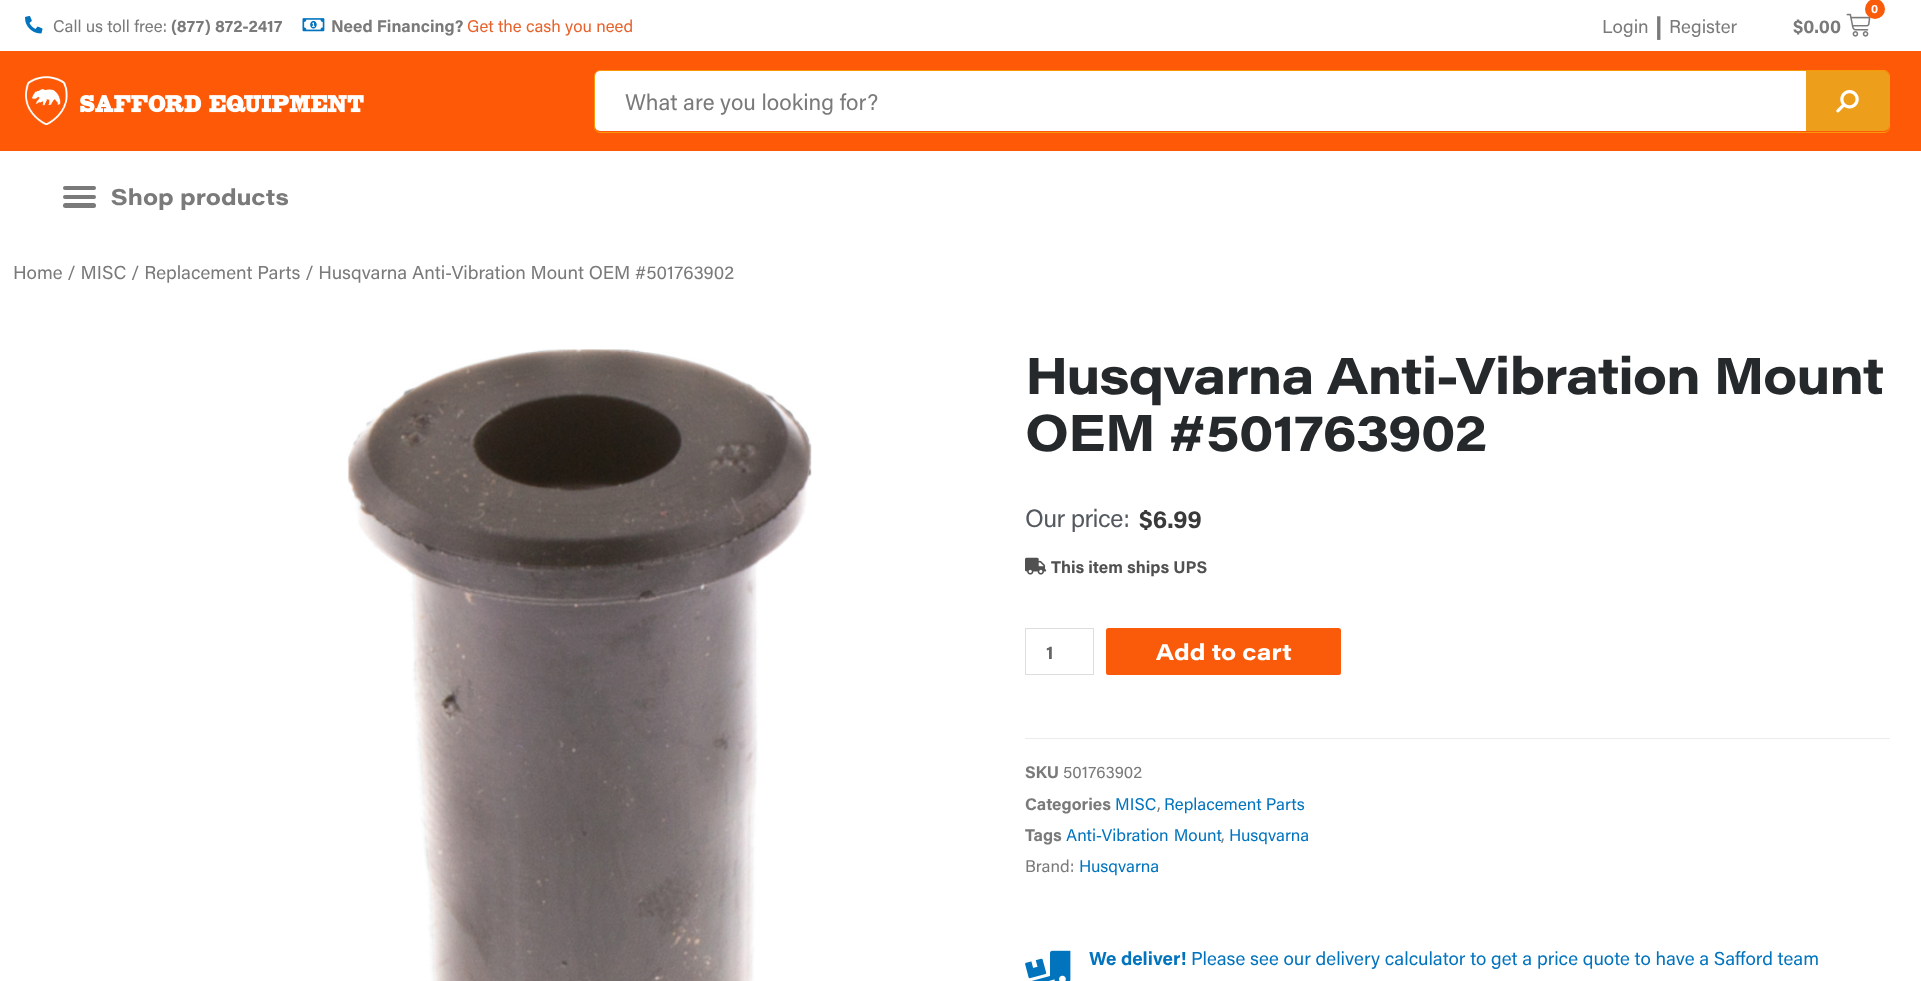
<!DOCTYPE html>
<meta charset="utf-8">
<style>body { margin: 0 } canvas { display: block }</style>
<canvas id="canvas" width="1921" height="981"></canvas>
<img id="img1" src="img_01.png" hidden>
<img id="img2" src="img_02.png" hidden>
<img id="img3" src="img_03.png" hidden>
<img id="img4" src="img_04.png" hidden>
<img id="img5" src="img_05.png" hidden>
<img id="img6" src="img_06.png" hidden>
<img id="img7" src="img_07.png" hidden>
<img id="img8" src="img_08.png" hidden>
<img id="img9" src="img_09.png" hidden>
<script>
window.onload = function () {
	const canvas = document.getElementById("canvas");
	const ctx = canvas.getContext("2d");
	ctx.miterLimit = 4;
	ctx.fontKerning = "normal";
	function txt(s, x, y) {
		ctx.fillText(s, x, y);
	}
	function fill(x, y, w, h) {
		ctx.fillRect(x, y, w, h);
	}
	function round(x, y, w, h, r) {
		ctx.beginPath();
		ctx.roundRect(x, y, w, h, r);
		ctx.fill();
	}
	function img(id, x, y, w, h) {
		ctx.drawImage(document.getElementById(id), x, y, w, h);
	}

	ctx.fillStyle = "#FFFFFF";
	fill(0, 0, 1921, 981);
	img("img1", 25, 16, 18, 18);
	img("img2", 302, 18, 23, 14);
	img("img3", 1846, 13, 25, 24);
	ctx.fillStyle = "#F95B0A";
	ctx.beginPath();
	ctx.arc(1875, 9, 10, 0, Math.PI * 2);
	ctx.fill();
	ctx.fillStyle = "#FD5906";
	fill(0, 51, 1921, 100);
	img("img4", 25, 76, 43, 49);
	img("img5", 80, 95, 284, 18);
	ctx.beginPath();
	ctx.roundRect(594.5, 70.5, 1295, 62, 5.5);
	ctx.strokeStyle = "#F9990A";
	ctx.stroke();
	ctx.fillStyle = "#FFFFFF";
	ctx.beginPath();
	ctx.roundRect(595, 71, 1211, 60, [5, 0, 0, 5]);
	ctx.fill();
	ctx.fillStyle = "#ED9E1B";
	ctx.beginPath();
	ctx.roundRect(1806, 71, 83, 60, [0, 5, 5, 0]);
	ctx.fill();
	img("img6", 1836, 90, 23, 23);
	ctx.fillStyle = "#7A7A7A";
	round(63, 195, 33, 4, 2);
	round(63, 186, 33, 4, 2);
	round(63, 203, 33, 5, 2.5);
	img("img7", 347, 349, 465, 632);
	img("img8", 1025, 557, 22, 18);
	ctx.strokeStyle = "#DDDDDD";
	ctx.strokeRect(1025.5, 628.5, 68, 46);
	ctx.fillStyle = "#F95B0A";
	round(1106, 628, 235, 47, 2.5);
	ctx.fillStyle = "#EBEBEB";
	fill(1025, 738, 865, 1);
	img("img9", 1025, 950, 46, 31);
	ctx.font = "16.9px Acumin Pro";
	ctx.fillStyle = "#7A7A7A";
	txt("Call us toll free:", 53, 32);
	ctx.font = "bold 16.9px Acumin Pro";
	txt("(877) 872-2417", 171, 32);
	txt("Need Financing?", 331, 32);
	ctx.font = "16.9px Acumin Pro";
	ctx.fillStyle = "#E8632B";
	txt("Get the cash you need", 467, 32);
	ctx.font = "18.75px Acumin Pro";
	ctx.fillStyle = "#7A7A7A";
	txt("Login", 1602, 33);
	ctx.font = "bold 22.5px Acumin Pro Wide";
	txt("|", 1655, 34);
	ctx.font = "18.75px Acumin Pro";
	txt("Register", 1669, 33);
	ctx.font = "bold 12px Acumin Pro";
	ctx.fillStyle = "#FFFFFF";
	txt("0", 1871, 13);
	ctx.font = "bold 18.75px Acumin Pro";
	ctx.fillStyle = "#7A7A7A";
	txt("$0.00", 1793, 33);
	ctx.font = "22.5px Acumin Pro";
	txt("What are you looking for?", 625, 110);
	ctx.font = "bold 22.5px Acumin Pro Wide";
	txt("Shop products", 111, 205);
	ctx.font = "18.75px Acumin Pro";
	txt("Home / MISC / Replacement Parts / Husqvarna Anti-Vibration Mount OEM #501763902", 13, 279);
	ctx.letterSpacing = "-0.9px";
	ctx.font = "bold 51.25px Acumin Pro Wide";
	ctx.fillStyle = "#26292B";
	txt("Husqvarna Anti-Vibration Mount", 1025, 394);
	txt("OEM #501763902", 1025, 451);
	ctx.letterSpacing = "-0.5px";
	ctx.font = "25px Acumin Pro";
	ctx.fillStyle = "#54595F";
	txt("Our price:", 1025, 527);
	ctx.letterSpacing = "0px";
	ctx.font = "bold 25px Acumin Pro";
	ctx.fillStyle = "#3A3A3A";
	txt("$6.99", 1139, 528);
	ctx.font = "bold 16.9px Acumin Pro";
	ctx.fillStyle = "#515151";
	txt("This item ships UPS", 1051, 573);
	ctx.font = "bold 18.75px Acumin Pro";
	ctx.fillStyle = "#666666";
	txt("1", 1046, 659);
	ctx.font = "bold 22.5px Acumin Pro Wide";
	ctx.fillStyle = "#FFFFFF";
	txt("Add to cart", 1156, 660);
	ctx.font = "bold 16.9px Acumin Pro";
	ctx.fillStyle = "#7A7A7A";
	txt("SKU", 1025, 778);
	ctx.font = "16.9px Acumin Pro";
	txt("501763902", 1063, 778);
	ctx.font = "bold 16.9px Acumin Pro";
	txt("Categories", 1025, 810);
	ctx.font = "16.9px Acumin Pro";
	ctx.fillStyle = "#0274BE";
	txt("MISC", 1115, 810);
	ctx.fillStyle = "#7A7A7A";
	txt(",", 1157, 810);
	ctx.fillStyle = "#0274BE";
	txt("Replacement Parts", 1164, 810);
	ctx.font = "bold 16.9px Acumin Pro";
	ctx.fillStyle = "#7A7A7A";
	txt("Tags", 1025, 841);
	ctx.wordSpacing = "1px";
	ctx.font = "16.9px Acumin Pro";
	ctx.fillStyle = "#0274BE";
	txt("Anti-Vibration Mount", 1066, 841);
	ctx.wordSpacing = "0px";
	ctx.fillStyle = "#7A7A7A";
	txt(",", 1221, 841);
	ctx.fillStyle = "#0274BE";
	txt("Husqvarna", 1229, 841);
	ctx.fillStyle = "#7A7A7A";
	txt("Brand:", 1025, 872);
	ctx.fillStyle = "#0274BE";
	txt("Husqvarna", 1079, 872);
	ctx.font = "bold 18.75px Acumin Pro";
	txt("We deliver!", 1089, 965);
	ctx.font = "18.75px Acumin Pro";
	txt("Please see our delivery calculator to get a price quote to have a Safford team", 1191, 965);
};
</script>
